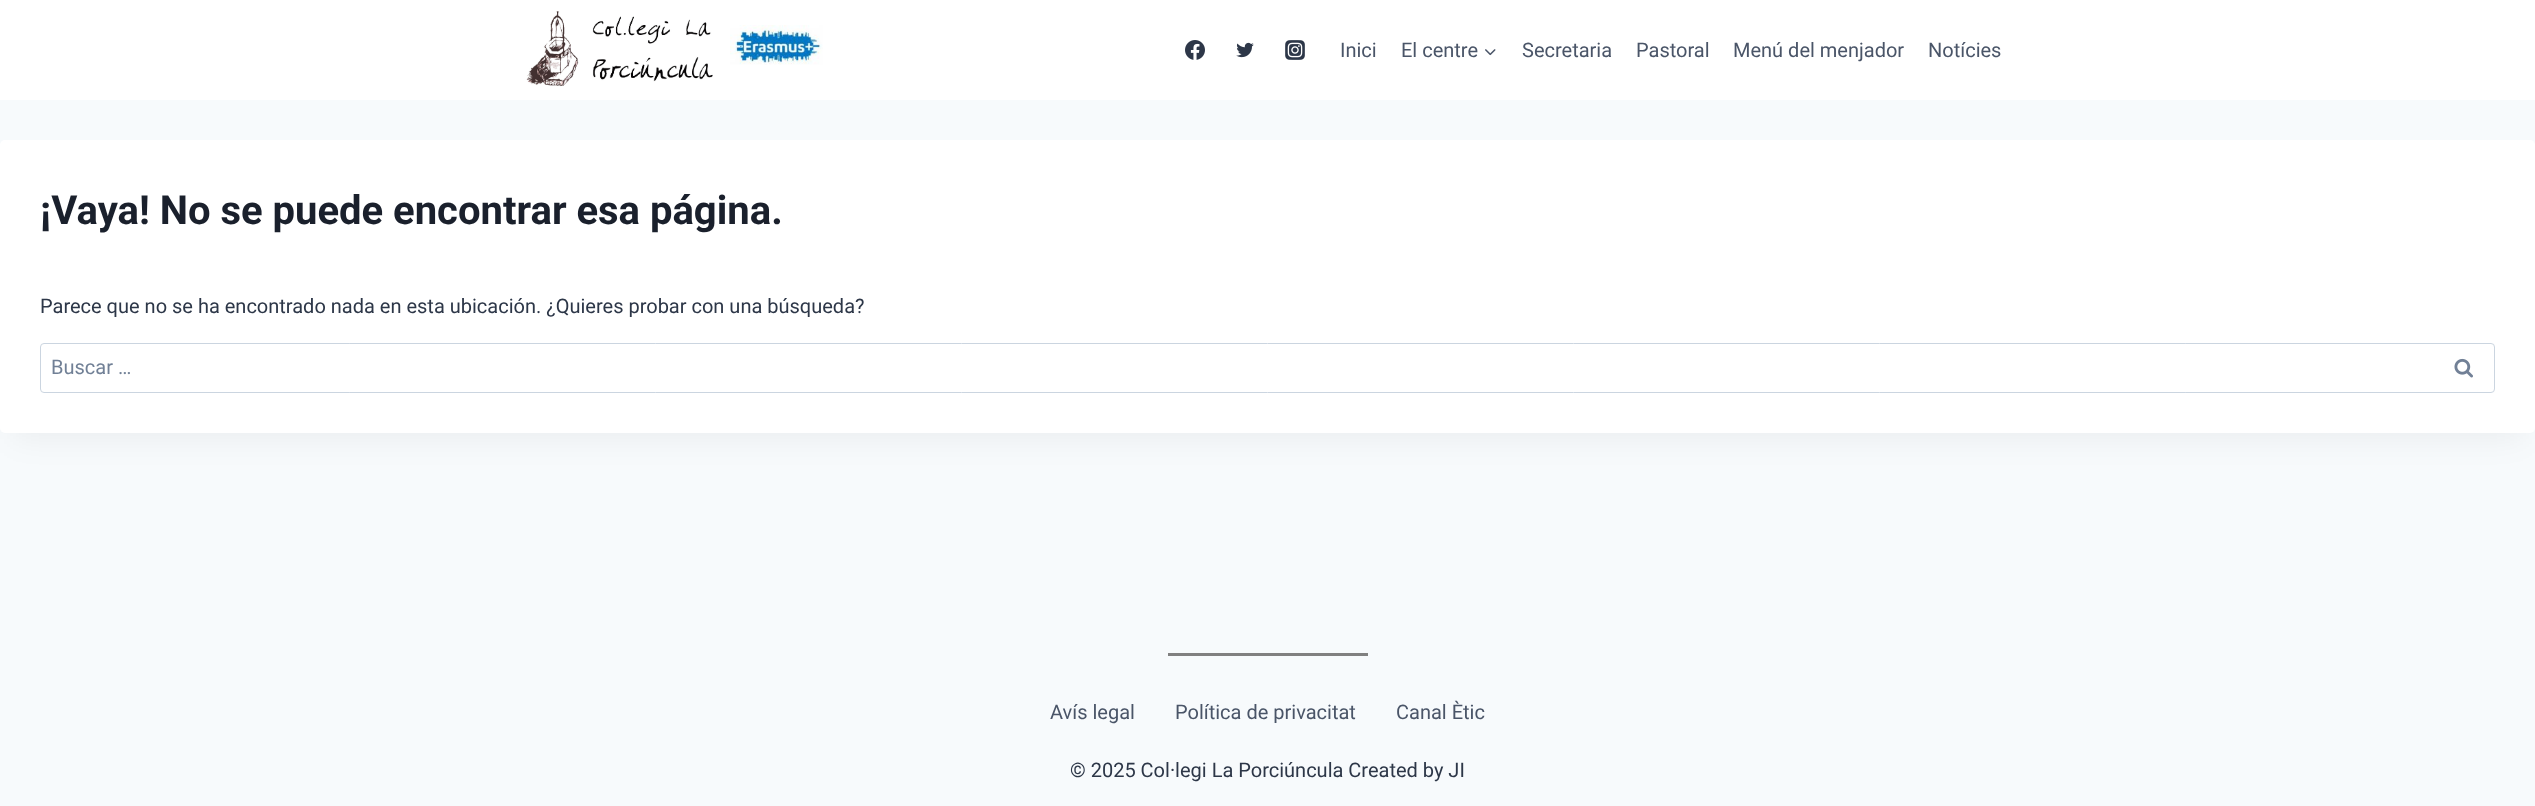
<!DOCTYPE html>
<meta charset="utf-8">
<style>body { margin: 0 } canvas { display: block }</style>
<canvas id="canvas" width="2535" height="806"></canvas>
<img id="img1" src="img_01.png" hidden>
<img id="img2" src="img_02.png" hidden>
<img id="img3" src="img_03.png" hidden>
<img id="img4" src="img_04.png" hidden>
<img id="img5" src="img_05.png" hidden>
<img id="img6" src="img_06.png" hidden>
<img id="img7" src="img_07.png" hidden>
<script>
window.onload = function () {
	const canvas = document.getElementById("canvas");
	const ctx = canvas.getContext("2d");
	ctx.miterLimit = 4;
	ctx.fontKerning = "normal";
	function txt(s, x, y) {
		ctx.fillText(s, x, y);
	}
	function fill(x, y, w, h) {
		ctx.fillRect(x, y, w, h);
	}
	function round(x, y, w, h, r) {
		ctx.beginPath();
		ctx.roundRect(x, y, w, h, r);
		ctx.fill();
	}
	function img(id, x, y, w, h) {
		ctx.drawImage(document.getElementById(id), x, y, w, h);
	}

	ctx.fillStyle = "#F7FAFC";
	fill(0, 0, 2535, 806);
	ctx.fillStyle = "#FFFFFF";
	fill(0, 0, 2535, 100);
	img("img1", 526, 11, 187, 76);
	img("img2", 730, 25, 93, 40);
	img("img3", 1185, 40, 20, 20);
	img("img4", 1236, 42, 18, 16);
	img("img5", 1285, 40, 20, 20);
	img("img6", 1485, 49, 11, 7);
	ctx.fillStyle = "rgba(0, 0, 0, 0.05)";
	ctx.filter = "blur(15.5px)";
	ctx.beginPath();
	ctx.rect(13, 171, 2510, 268);
	ctx.fill();
	ctx.filter = "none";
	ctx.fillStyle = "#FFFFFF";
	round(0, 140, 2535, 293, 5);
	ctx.beginPath();
	ctx.roundRect(40.5, 343.5, 2454, 49, 3.5);
	ctx.strokeStyle = "#CBD5E0";
	ctx.stroke();
	img("img7", 2454, 358, 19, 20);
	ctx.fillStyle = "#808080";
	fill(1168, 653, 200, 3);
	ctx.font = "20px Roboto";
	ctx.fillStyle = "#4A5568";
	txt("Inici", 1340, 57);
	txt("El centre", 1401, 57);
	txt("Secretaria", 1522, 57);
	txt("Pastoral", 1636, 57);
	txt("Menú del menjador", 1733, 57);
	txt("Notícies", 1928, 57);
	ctx.font = "bold 40px Roboto";
	ctx.fillStyle = "#1A202C";
	txt("¡Vaya! No se puede encontrar esa página.", 40, 224);
	ctx.font = "20px Roboto";
	ctx.fillStyle = "#2D3748";
	txt("Parece que no se ha encontrado nada en esta ubicación. ¿Quieres probar con una búsqueda?", 40, 313);
	ctx.fillStyle = "#718096";
	txt("Buscar …", 51, 374);
	ctx.fillStyle = "#4A5568";
	txt("Avís legal", 1050, 719);
	txt("Política de privacitat", 1175, 719);
	txt("Canal Ètic", 1396, 719);
	ctx.fillStyle = "#2D3748";
	txt("© 2025 Col·legi La Porciúncula Created by JI", 1070, 777);
};
</script>
